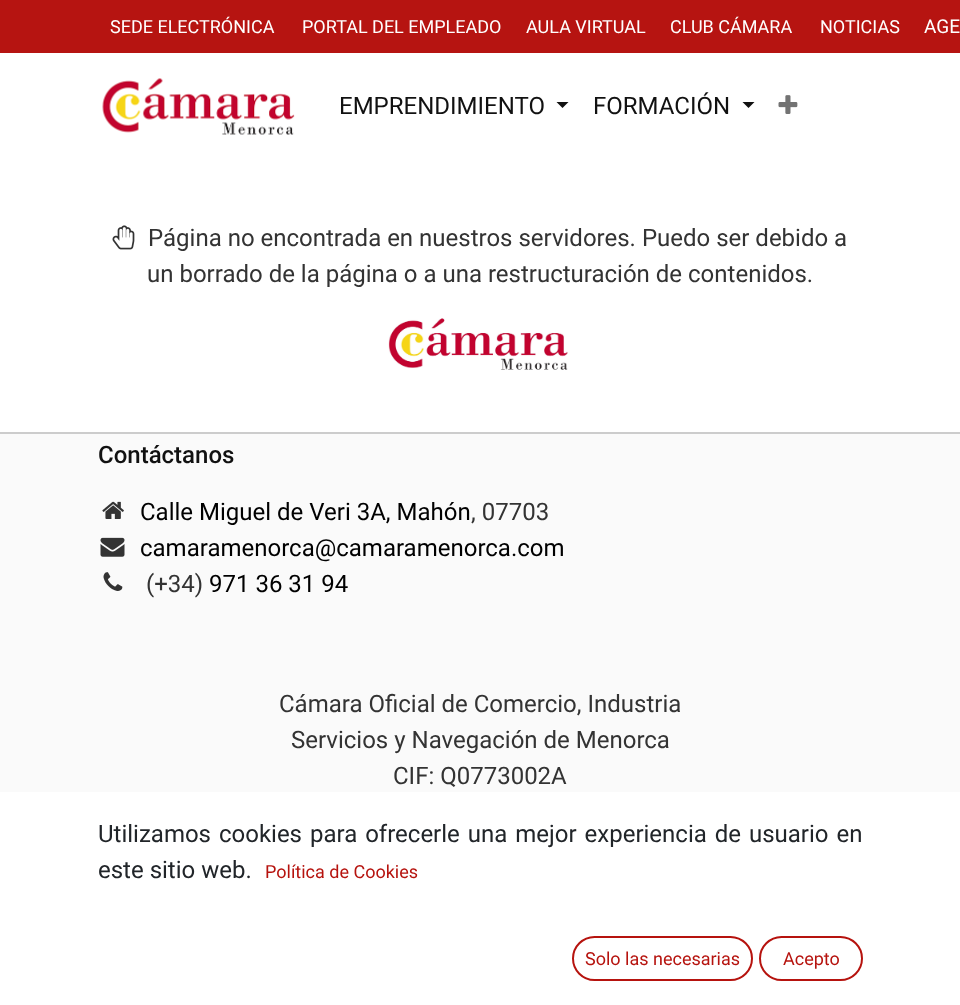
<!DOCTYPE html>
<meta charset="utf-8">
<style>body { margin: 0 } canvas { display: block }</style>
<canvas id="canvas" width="960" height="1005"></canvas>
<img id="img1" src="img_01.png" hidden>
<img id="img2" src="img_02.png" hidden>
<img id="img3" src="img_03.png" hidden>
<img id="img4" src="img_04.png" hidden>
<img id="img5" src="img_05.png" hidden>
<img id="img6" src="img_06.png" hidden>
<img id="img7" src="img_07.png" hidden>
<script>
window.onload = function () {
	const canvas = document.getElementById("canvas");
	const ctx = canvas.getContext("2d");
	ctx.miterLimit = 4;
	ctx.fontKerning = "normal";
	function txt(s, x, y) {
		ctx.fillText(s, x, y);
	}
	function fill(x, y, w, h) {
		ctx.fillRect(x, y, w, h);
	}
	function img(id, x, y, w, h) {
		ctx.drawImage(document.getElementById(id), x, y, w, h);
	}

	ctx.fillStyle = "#FFFFFF";
	fill(0, 0, 960, 1005);
	ctx.fillStyle = "#B61411";
	fill(0, 0, 960, 53);
	img("img1", 102, 78, 193, 57);
	ctx.fillStyle = "#111111";
	ctx.beginPath();
	ctx.moveTo(556.5, 102);
	ctx.lineTo(568.5, 102);
	ctx.lineTo(562.5, 108);
	ctx.closePath();
	ctx.fill();
	ctx.beginPath();
	ctx.moveTo(742.5, 102);
	ctx.lineTo(754.5, 102);
	ctx.lineTo(748.5, 108);
	ctx.closePath();
	ctx.fill();
	img("img2", 778, 95, 20, 19);
	img("img3", 112, 225, 23, 25);
	img("img4", 388, 318, 180, 52);
	ctx.fillStyle = "#FAFAFA";
	fill(0, 434, 960, 358);
	ctx.fillStyle = "#CCCCCC";
	fill(0, 432, 960, 2);
	img("img5", 102, 501, 22, 18);
	img("img6", 100, 537, 25, 20);
	img("img7", 103, 572, 20, 19);
	ctx.beginPath();
	ctx.roundRect(573, 937, 179, 43, 21.5);
	ctx.strokeStyle = "#B6130E";
	ctx.lineWidth = 2;
	ctx.stroke();
	ctx.beginPath();
	ctx.roundRect(760, 937, 102, 43, 21.5);
	ctx.stroke();
	ctx.font = "18px Roboto";
	ctx.fillStyle = "#FFFFFF";
	txt("SEDE ELECTRÓNICA", 110, 33);
	txt("PORTAL DEL EMPLEADO", 302, 33);
	txt("AULA VIRTUAL", 526, 33);
	txt("CLUB CÁMARA", 670, 33);
	txt("NOTICIAS", 820, 33);
	ctx.font = "19px Roboto";
	txt("AGE", 924, 33);
	ctx.font = "24px Roboto";
	ctx.fillStyle = "#111111";
	txt("EMPRENDIMIENTO", 339, 114);
	txt("FORMACIÓN", 593, 114);
	ctx.fillStyle = "#333333";
	txt("Página no encontrada en nuestros servidores. Puedo ser debido a", 148, 246);
	txt("un borrado de la página o a una restructuración de contenidos.", 147, 282);
	ctx.font = "500 24px Roboto";
	ctx.fillStyle = "#111111";
	txt("Contáctanos", 98, 463);
	ctx.font = "24px Roboto";
	ctx.fillStyle = "#000000";
	txt("Calle Miguel de Veri 3A, Mahón", 140, 520);
	ctx.fillStyle = "#333333";
	txt(", 07703", 471, 520);
	ctx.fillStyle = "#000000";
	txt("camaramenorca@camaramenorca.com", 140, 556);
	ctx.fillStyle = "#333333";
	txt("(+34)", 146, 592);
	ctx.fillStyle = "#000000";
	txt("971 36 31 94", 209, 592);
	ctx.fillStyle = "#333333";
	txt("Cámara Oficial de Comercio, Industria", 279, 712);
	txt("Servicios y Navegación de Menorca", 291, 748);
	txt("CIF: Q0773002A", 393, 784);
	ctx.wordSpacing = "2px";
	ctx.fillStyle = "#212529";
	txt("Utilizamos cookies para ofrecerle una mejor experiencia de usuario en", 98, 842);
	ctx.wordSpacing = "0px";
	txt("este sitio web.", 98, 878);
	ctx.font = "18px Roboto";
	ctx.fillStyle = "#B6130E";
	txt("Política de Cookies", 265, 878);
	txt("Solo las necesarias", 585, 965);
	txt("Acepto", 783, 965);
};
</script>
